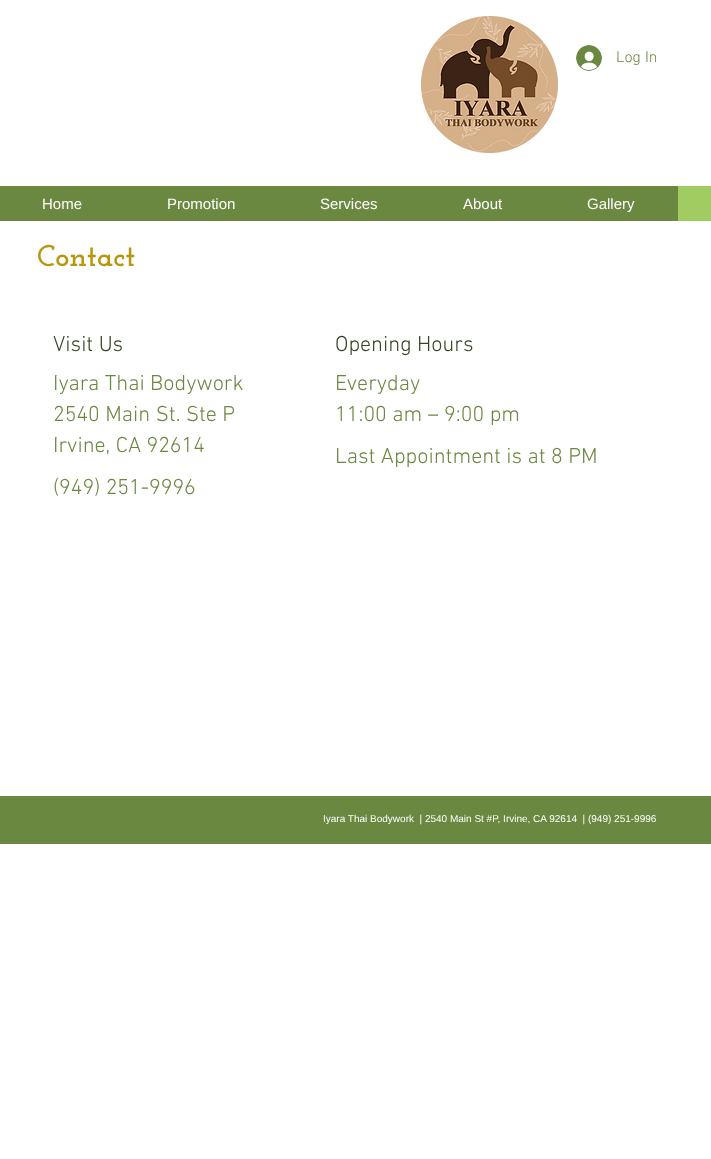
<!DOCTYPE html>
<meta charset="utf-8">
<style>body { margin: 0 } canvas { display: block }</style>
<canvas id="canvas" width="711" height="1159"></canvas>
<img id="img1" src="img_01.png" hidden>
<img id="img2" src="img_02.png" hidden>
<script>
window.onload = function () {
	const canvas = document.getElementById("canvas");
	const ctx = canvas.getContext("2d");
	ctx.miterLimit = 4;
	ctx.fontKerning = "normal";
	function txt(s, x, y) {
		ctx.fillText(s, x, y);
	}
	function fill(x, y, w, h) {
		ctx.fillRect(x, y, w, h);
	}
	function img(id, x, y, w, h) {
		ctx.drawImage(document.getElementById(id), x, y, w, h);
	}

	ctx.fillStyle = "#FFFFFF";
	fill(0, 0, 711, 1159);
	img("img1", 576, 45, 26, 26);
	img("img2", 421, 16, 137, 137);
	ctx.fillStyle = "#6B8841";
	fill(0, 186, 678, 35);
	ctx.fillStyle = "#A0CC62";
	fill(678, 186, 33, 35);
	ctx.fillStyle = "#6B8841";
	fill(0, 796, 711, 48);
	ctx.font = "300 16px 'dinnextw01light'";
	txt("Log In", 616, 62);
	ctx.font = "15px Liberation Sans";
	ctx.fillStyle = "#FFFFFF";
	txt("Home", 42, 209);
	txt("Promotion", 167, 209);
	txt("Services", 320, 209);
	txt("About", 463, 209);
	txt("Gallery", 587, 209);
	ctx.font = "bold 30px Josefin Slab";
	ctx.fillStyle = "#B89710";
	txt("Contact", 37, 266);
	ctx.font = "300 22px 'dinnextw01light'";
	ctx.fillStyle = "#354421";
	txt("Visit Us", 53, 351);
	ctx.fillStyle = "#6B8841";
	txt("Iyara Thai Bodywork", 53, 390);
	txt("2540 Main St. Ste P", 53, 421);
	txt("Irvine, CA 92614", 53, 452);
	txt("(949) 251-9996", 53, 494);
	ctx.fillStyle = "#354421";
	txt("Opening Hours", 335, 351);
	ctx.fillStyle = "#6B8841";
	txt("Everyday", 335, 390);
	txt("11:00 am – 9:00 pm", 335, 421);
	txt("Last Appointment is at 8 PM", 335, 463);
	ctx.font = "10px Liberation Sans";
	ctx.fillStyle = "#FFFFFF";
	txt("Iyara Thai Bodywork  | 2540 Main St #P, Irvine, CA 92614  | (949) 251-9996", 323, 822);
};
</script>
